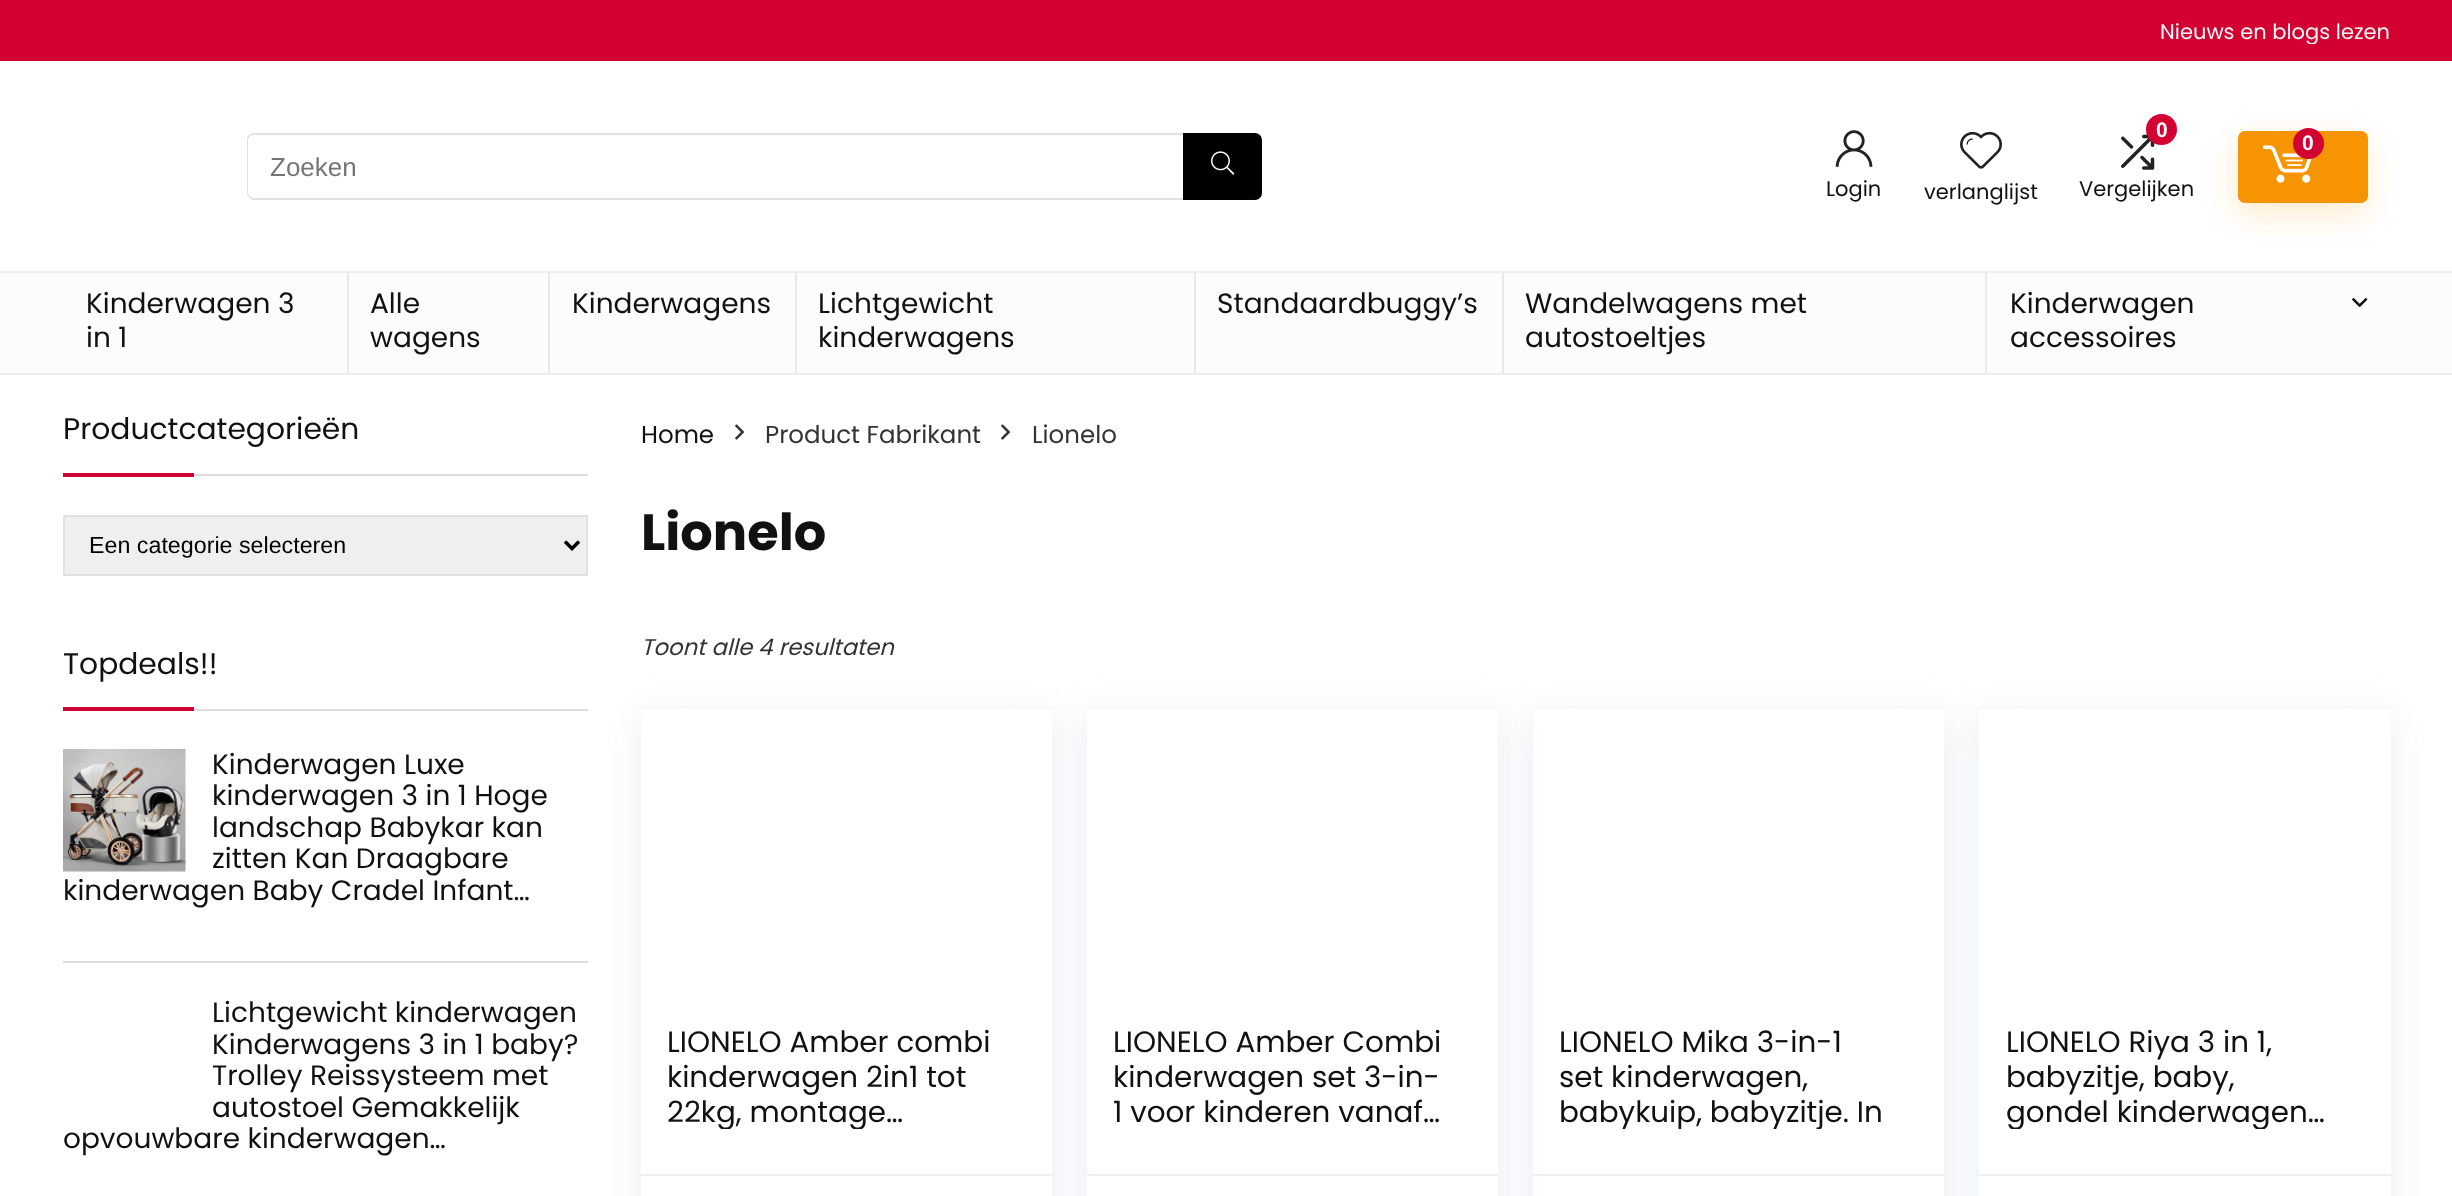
<!DOCTYPE html>
<meta charset="utf-8">
<style>body { margin: 0 } canvas { display: block }</style>
<canvas id="canvas" width="2452" height="1196"></canvas>
<img id="img1" src="img_01.png" hidden>
<img id="img2" src="img_02.png" hidden>
<img id="img3" src="img_03.png" hidden>
<img id="img4" src="img_04.png" hidden>
<img id="img5" src="img_05.png" hidden>
<img id="img6" src="img_06.png" hidden>
<img id="img7" src="img_07.png" hidden>
<img id="img8" src="img_08.png" hidden>
<script>
window.onload = function () {
	const canvas = document.getElementById("canvas");
	const ctx = canvas.getContext("2d");
	ctx.miterLimit = 4;
	ctx.fontKerning = "normal";
	function txt(s, x, y) {
		ctx.fillText(s, x, y);
	}
	function fill(x, y, w, h) {
		ctx.fillRect(x, y, w, h);
	}
	function round(x, y, w, h, r) {
		ctx.beginPath();
		ctx.roundRect(x, y, w, h, r);
		ctx.fill();
	}
	function img(id, x, y, w, h) {
		ctx.drawImage(document.getElementById(id), x, y, w, h);
	}

	ctx.fillStyle = "#FFFFFF";
	fill(0, 0, 2452, 1196);
	ctx.fillStyle = "#D30032";
	fill(0, 0, 2452, 61);
	ctx.fillStyle = "#E1E1E1";
	ctx.beginPath();
	ctx.moveTo(254, 133);
	ctx.lineTo(1183, 133);
	ctx.lineTo(1183, 200);
	ctx.lineTo(254, 200);
	ctx.bezierCurveTo(250, 200, 247, 196, 247, 192);
	ctx.lineTo(247, 140);
	ctx.bezierCurveTo(247, 136, 250, 133, 254, 133);
	ctx.closePath();
	ctx.moveTo(254, 135);
	ctx.lineTo(1183, 135);
	ctx.lineTo(1183, 198);
	ctx.lineTo(254, 198);
	ctx.bezierCurveTo(251, 198, 248, 195, 248, 192);
	ctx.lineTo(248, 140);
	ctx.bezierCurveTo(248, 137, 251, 135, 254, 135);
	ctx.closePath();
	ctx.fill("evenodd");
	ctx.fillStyle = "#000000";
	ctx.beginPath();
	ctx.roundRect(1183, 133, 79, 67, [0, 7, 7, 0]);
	ctx.fill();
	img("img1", 1211, 151, 24, 24);
	img("img2", 2121, 134, 34, 36);
	ctx.fillStyle = "#D30032";
	ctx.beginPath();
	ctx.arc(2161.5, 129.5, 15.5, 0, Math.PI * 2);
	ctx.fill();
	ctx.fillStyle = "rgba(247, 148, 1, 0.2)";
	ctx.filter = "blur(16.5px)";
	ctx.beginPath();
	ctx.roundRect(2237, 142, 129, 72, 7);
	ctx.fill();
	ctx.filter = "none";
	ctx.fillStyle = "#F79401";
	round(2238, 131, 130, 72, 7);
	img("img3", 2262, 145, 50, 38);
	ctx.fillStyle = "#D30032";
	ctx.beginPath();
	ctx.arc(2308.5, 143.5, 15.5, 0, Math.PI * 2);
	ctx.fill();
	img("img4", 1835, 130, 38, 37);
	img("img5", 1960, 131, 42, 38);
	ctx.fillStyle = "#FCFCFC";
	fill(0, 273, 2452, 100);
	ctx.fillStyle = "#EEEEEE";
	fill(0, 271, 2452, 2);
	fill(0, 373, 2452, 2);
	ctx.fillStyle = "#E8E8E8";
	fill(347, 273, 2, 100);
	fill(548, 273, 2, 100);
	fill(795, 273, 2, 100);
	fill(1194, 273, 2, 100);
	fill(1502, 273, 2, 100);
	fill(1985, 273, 2, 100);
	img("img6", 2352, 298, 16, 10);
	ctx.fillStyle = "#DDDDDD";
	fill(194, 474, 394, 2);
	ctx.fillStyle = "#D30032";
	fill(63, 473, 131, 4);
	ctx.fillStyle = "#EFEFEF";
	ctx.beginPath();
	ctx.rect(64, 516, 523, 59);
	ctx.fill();
	ctx.strokeStyle = "#E1E1E1";
	ctx.lineWidth = 2;
	ctx.stroke();
	ctx.beginPath();
	ctx.moveTo(565, 541.5);
	ctx.lineTo(572, 548.5);
	ctx.lineTo(579, 541.5);
	ctx.strokeStyle = "#000000";
	ctx.lineWidth = 3.5;
	ctx.stroke();
	ctx.fillStyle = "#DDDDDD";
	fill(194, 709, 394, 2);
	ctx.fillStyle = "#D30032";
	fill(63, 707, 131, 4);
	ctx.fillStyle = "#DDDDDD";
	fill(63, 961, 525, 2);
	img("img7", 63, 749, 123, 123);
	img("img8", 735, 424, 10, 16);
	img("img8", 1001, 424, 10, 16);
	ctx.fillStyle = "rgba(188, 207, 219, 0.35)";
	ctx.filter = "blur(20px)";
	ctx.beginPath();
	ctx.rect(641, 716, 411, 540);
	ctx.fill();
	ctx.filter = "none";
	ctx.fillStyle = "#FFFFFF";
	fill(641, 709, 411, 487);
	ctx.fillStyle = "#F8F8F8";
	fill(641, 707, 411, 2);
	ctx.fillStyle = "#F0F0F0";
	fill(641, 1174, 411, 2);
	ctx.save();
	ctx.beginPath();
	ctx.moveTo(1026, 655);
	ctx.lineTo(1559, 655);
	ctx.lineTo(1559, 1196);
	ctx.lineTo(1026, 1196);
	ctx.closePath();
	ctx.moveTo(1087, 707);
	ctx.lineTo(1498, 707);
	ctx.lineTo(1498, 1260);
	ctx.lineTo(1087, 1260);
	ctx.closePath();
	ctx.clip("evenodd");
	ctx.fillStyle = "rgba(188, 207, 219, 0.35)";
	ctx.filter = "blur(20px)";
	ctx.beginPath();
	ctx.rect(1087, 716, 411, 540);
	ctx.fill();
	ctx.filter = "none";
	ctx.restore();
	ctx.fillStyle = "#F8F8F8";
	fill(1087, 707, 411, 2);
	ctx.fillStyle = "#F0F0F0";
	fill(1087, 1174, 411, 2);
	ctx.save();
	ctx.beginPath();
	ctx.moveTo(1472, 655);
	ctx.lineTo(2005, 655);
	ctx.lineTo(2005, 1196);
	ctx.lineTo(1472, 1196);
	ctx.closePath();
	ctx.moveTo(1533, 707);
	ctx.lineTo(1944, 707);
	ctx.lineTo(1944, 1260);
	ctx.lineTo(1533, 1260);
	ctx.closePath();
	ctx.clip("evenodd");
	ctx.fillStyle = "rgba(188, 207, 219, 0.35)";
	ctx.filter = "blur(20px)";
	ctx.beginPath();
	ctx.rect(1533, 716, 411, 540);
	ctx.fill();
	ctx.filter = "none";
	ctx.restore();
	ctx.fillStyle = "#F8F8F8";
	fill(1533, 707, 411, 2);
	ctx.fillStyle = "#F0F0F0";
	fill(1533, 1174, 411, 2);
	ctx.fillStyle = "rgba(188, 207, 219, 0.35)";
	ctx.filter = "blur(20px)";
	ctx.beginPath();
	ctx.rect(1979, 716, 412, 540);
	ctx.fill();
	ctx.filter = "none";
	ctx.fillStyle = "#FFFFFF";
	fill(1979, 709, 412, 487);
	ctx.fillStyle = "#F8F8F8";
	fill(1979, 707, 412, 2);
	ctx.fillStyle = "#F0F0F0";
	fill(1979, 1174, 412, 2);
	ctx.save();
	ctx.beginPath();
	ctx.rect(2161, 18, 230, 26);
	ctx.clip();
	ctx.font = "21px Poppins";
	ctx.fillStyle = "#F4F4F4";
	txt("Nieuws en blogs lezen", 2160, 39);
	ctx.restore();
	ctx.font = "26px Liberation Sans";
	ctx.fillStyle = "#757575";
	txt("Zoeken", 270, 176);
	ctx.font = "bold 21px Liberation Sans";
	ctx.fillStyle = "#FFFFFF";
	txt("0", 2156, 137);
	ctx.font = "21px Poppins";
	ctx.fillStyle = "#111111";
	txt("Vergelijken", 2079, 196);
	ctx.font = "bold 21px Liberation Sans";
	ctx.fillStyle = "#FFFFFF";
	txt("0", 2302, 150);
	ctx.font = "21px Poppins";
	ctx.fillStyle = "#111111";
	txt("Login", 1826, 196);
	txt("verlanglijst", 1924, 199);
	ctx.font = "28px Poppins";
	txt("Kinderwagen 3", 86, 313);
	txt("in 1", 86, 347);
	txt("Alle", 370, 313);
	txt("wagens", 370, 347);
	txt("Kinderwagens", 572, 313);
	txt("Lichtgewicht", 818, 313);
	txt("kinderwagens", 818, 347);
	txt("Standaardbuggy’s", 1217, 313);
	txt("Wandelwagens met", 1525, 313);
	txt("autostoeltjes", 1525, 347);
	txt("Kinderwagen", 2010, 313);
	txt("accessoires", 2010, 347);
	ctx.font = "29.75px Poppins";
	txt("Productcategorieën", 63, 439);
	ctx.font = "23.25px Liberation Sans";
	ctx.fillStyle = "#000000";
	txt("Een categorie selecteren", 89, 553);
	ctx.font = "29.75px Poppins";
	ctx.fillStyle = "#111111";
	txt("Topdeals!!", 63, 674);
	ctx.font = "28px Poppins";
	txt("Kinderwagen Luxe", 212, 774);
	txt("kinderwagen 3 in 1 Hoge", 212, 805);
	txt("landschap Babykar kan", 212, 837);
	txt("zitten Kan Draagbare", 212, 868);
	txt("kinderwagen Baby Cradel Infant…", 63, 900);
	txt("Lichtgewicht kinderwagen", 212, 1022);
	txt("Kinderwagens 3 in 1 baby?", 212, 1054);
	txt("Trolley Reissysteem met", 212, 1085);
	txt("autostoel Gemakkelijk", 212, 1117);
	txt("opvouwbare kinderwagen…", 63, 1148);
	ctx.font = "24.5px Poppins";
	txt("Home", 641, 443);
	ctx.fillStyle = "#333333";
	txt("Product Fabrikant", 765, 443);
	txt("Lionelo", 1032, 443);
	ctx.font = "bold 51px Poppins";
	ctx.fillStyle = "#111111";
	txt("Lionelo", 641, 550);
	ctx.font = "italic 22.75px Poppins";
	ctx.fillStyle = "#333333";
	txt("Toont alle 4 resultaten", 641, 655);
	ctx.font = "29.4px Poppins";
	ctx.fillStyle = "#111111";
	txt("LIONELO Amber combi", 667, 1052);
	txt("kinderwagen 2in1 tot", 667, 1087);
	ctx.save();
	ctx.beginPath();
	ctx.rect(667, 1024, 332, 105);
	ctx.clip();
	txt("22kg, montage…", 667, 1122);
	ctx.restore();
	txt("LIONELO Amber Combi", 1113, 1052);
	txt("kinderwagen set 3-in-", 1113, 1087);
	txt("1 voor kinderen vanaf…", 1113, 1122);
	txt("LIONELO Mika 3-in-1", 1559, 1052);
	txt("set kinderwagen,", 1559, 1087);
	ctx.save();
	ctx.beginPath();
	ctx.rect(1559, 1024, 333, 105);
	ctx.clip();
	txt("babykuip, babyzitje. In", 1559, 1122);
	ctx.restore();
	txt("LIONELO Riya 3 in 1,", 2006, 1052);
	txt("babyzitje, baby,", 2006, 1087);
	ctx.save();
	ctx.beginPath();
	ctx.rect(2006, 1024, 332, 105);
	ctx.clip();
	txt("gondel kinderwagen…", 2006, 1122);
	ctx.restore();
};
</script>
